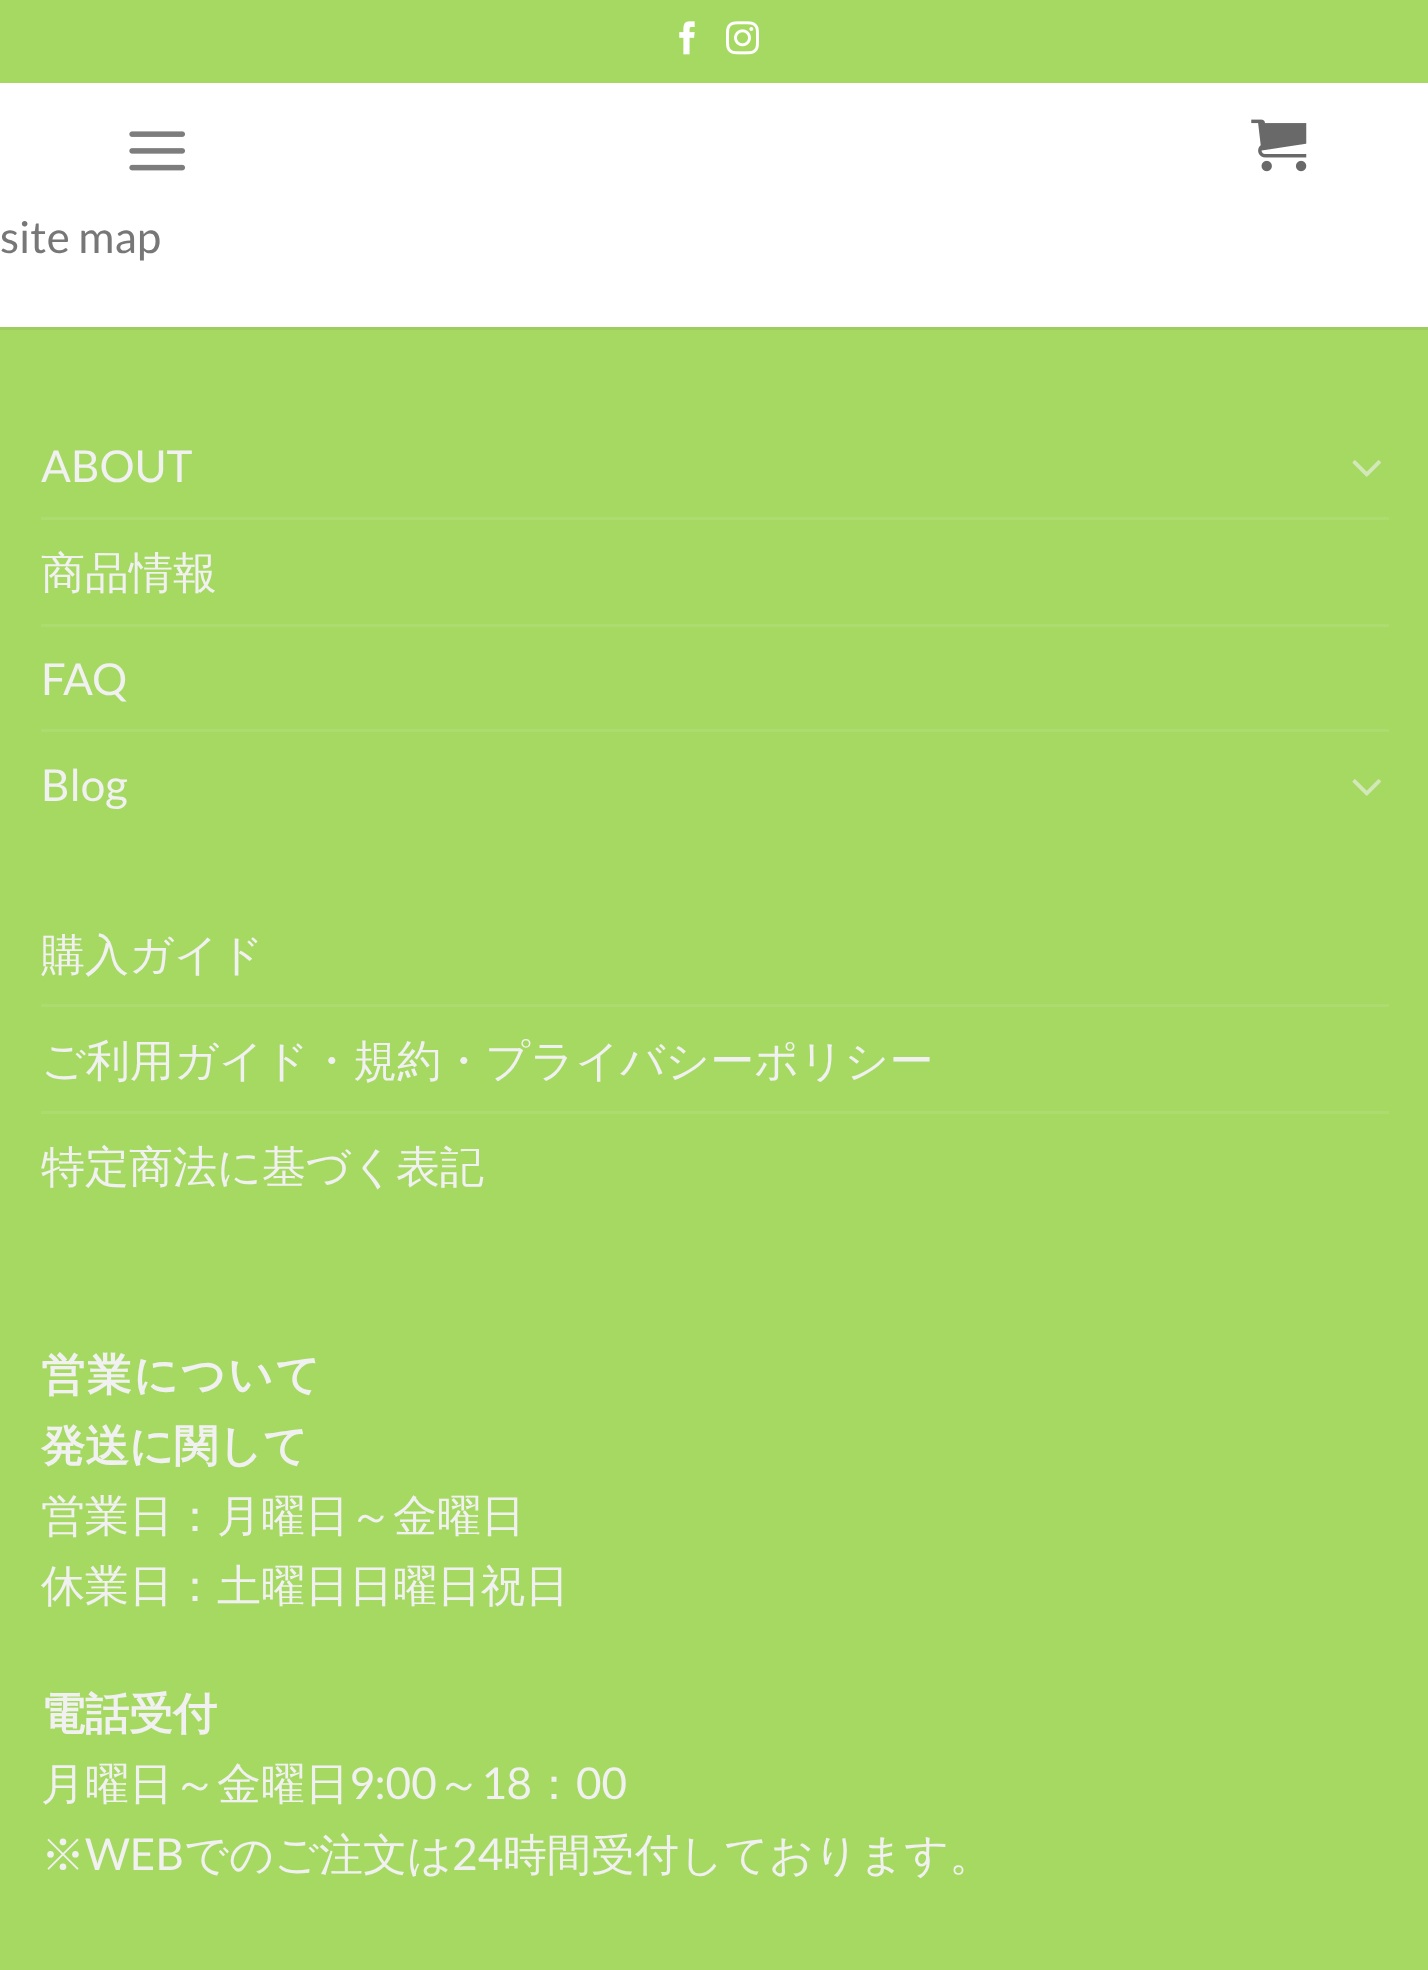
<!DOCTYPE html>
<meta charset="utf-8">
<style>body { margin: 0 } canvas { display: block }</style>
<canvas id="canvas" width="1428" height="1970"></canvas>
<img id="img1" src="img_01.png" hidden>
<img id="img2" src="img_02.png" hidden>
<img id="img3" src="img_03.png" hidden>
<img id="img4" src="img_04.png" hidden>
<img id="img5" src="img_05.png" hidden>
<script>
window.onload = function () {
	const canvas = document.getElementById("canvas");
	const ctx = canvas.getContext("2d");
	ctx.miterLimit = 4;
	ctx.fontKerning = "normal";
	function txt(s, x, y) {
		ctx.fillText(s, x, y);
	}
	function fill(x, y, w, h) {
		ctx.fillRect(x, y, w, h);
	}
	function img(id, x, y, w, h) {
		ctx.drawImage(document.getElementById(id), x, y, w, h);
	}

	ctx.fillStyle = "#FFFFFF";
	fill(0, 0, 1428, 1970);
	ctx.fillStyle = "#A5D962";
	fill(0, 0, 1428, 83);
	img("img1", 679, 21, 16, 34);
	img("img2", 726, 21, 33, 34);
	img("img3", 129, 131, 57, 40);
	img("img4", 1251, 119, 56, 53);
	fill(0, 330, 1428, 1640);
	ctx.fillStyle = "#9DCE5D";
	fill(0, 327, 1428, 3);
	img("img5", 1352, 460, 29, 17);
	ctx.fillStyle = "#ACDC6F";
	fill(41, 517, 1348, 3);
	fill(41, 624, 1348, 3);
	fill(41, 729, 1348, 3);
	img("img5", 1352, 779, 29, 17);
	fill(41, 1004, 1348, 3);
	fill(41, 1111, 1348, 3);
	ctx.font = "44px Lato";
	ctx.fillStyle = "#777777";
	txt("site map", 0, 253);
	ctx.fillStyle = "#F1F1F1";
	txt("ABOUT", 41, 482);
	ctx.font = "500 44px WenQuanYi Zen Hei";
	txt("商品情報", 41, 588);
	ctx.font = "44px Lato";
	txt("FAQ", 41, 695);
	txt("Blog", 41, 801);
	ctx.font = "500 44px WenQuanYi Zen Hei";
	txt("購入ガイド", 41, 970);
	txt("ご利用ガイド・規約・プライバシーポリシー", 41, 1076);
	txt("特定商法に基づく表記", 41, 1182);
	ctx.letterSpacing = "2.25px";
	ctx.font = "bold 44px WenQuanYi Zen Hei";
	txt("営業について", 41, 1390);
	ctx.letterSpacing = "0px";
	txt("発送に関して", 41, 1461);
	ctx.font = "500 44px WenQuanYi Zen Hei";
	txt("営業日：月曜日～金曜日", 41, 1531);
	txt("休業日：土曜日日曜日祝日", 41, 1601);
	ctx.font = "bold 44px WenQuanYi Zen Hei";
	txt("電話受付", 41, 1729);
	ctx.font = "500 44px WenQuanYi Zen Hei";
	txt("月曜日～金曜日", 41, 1799);
	ctx.font = "44px Lato";
	txt("9:00", 349, 1799);
	ctx.font = "500 44px WenQuanYi Zen Hei";
	txt("～", 437, 1799);
	ctx.font = "44px Lato";
	txt("18", 481, 1799);
	ctx.font = "500 44px WenQuanYi Zen Hei";
	txt("：", 532, 1799);
	ctx.font = "44px Lato";
	txt("00", 576, 1799);
	ctx.font = "500 44px WenQuanYi Zen Hei";
	txt("※", 41, 1870);
	ctx.font = "44px Lato";
	txt("WEB", 85, 1870);
	ctx.font = "500 44px WenQuanYi Zen Hei";
	txt("でのご注文は", 184, 1870);
	ctx.font = "44px Lato";
	txt("24", 452, 1870);
	ctx.font = "500 44px WenQuanYi Zen Hei";
	txt("時間受付しております。", 503, 1870);
};
</script>
